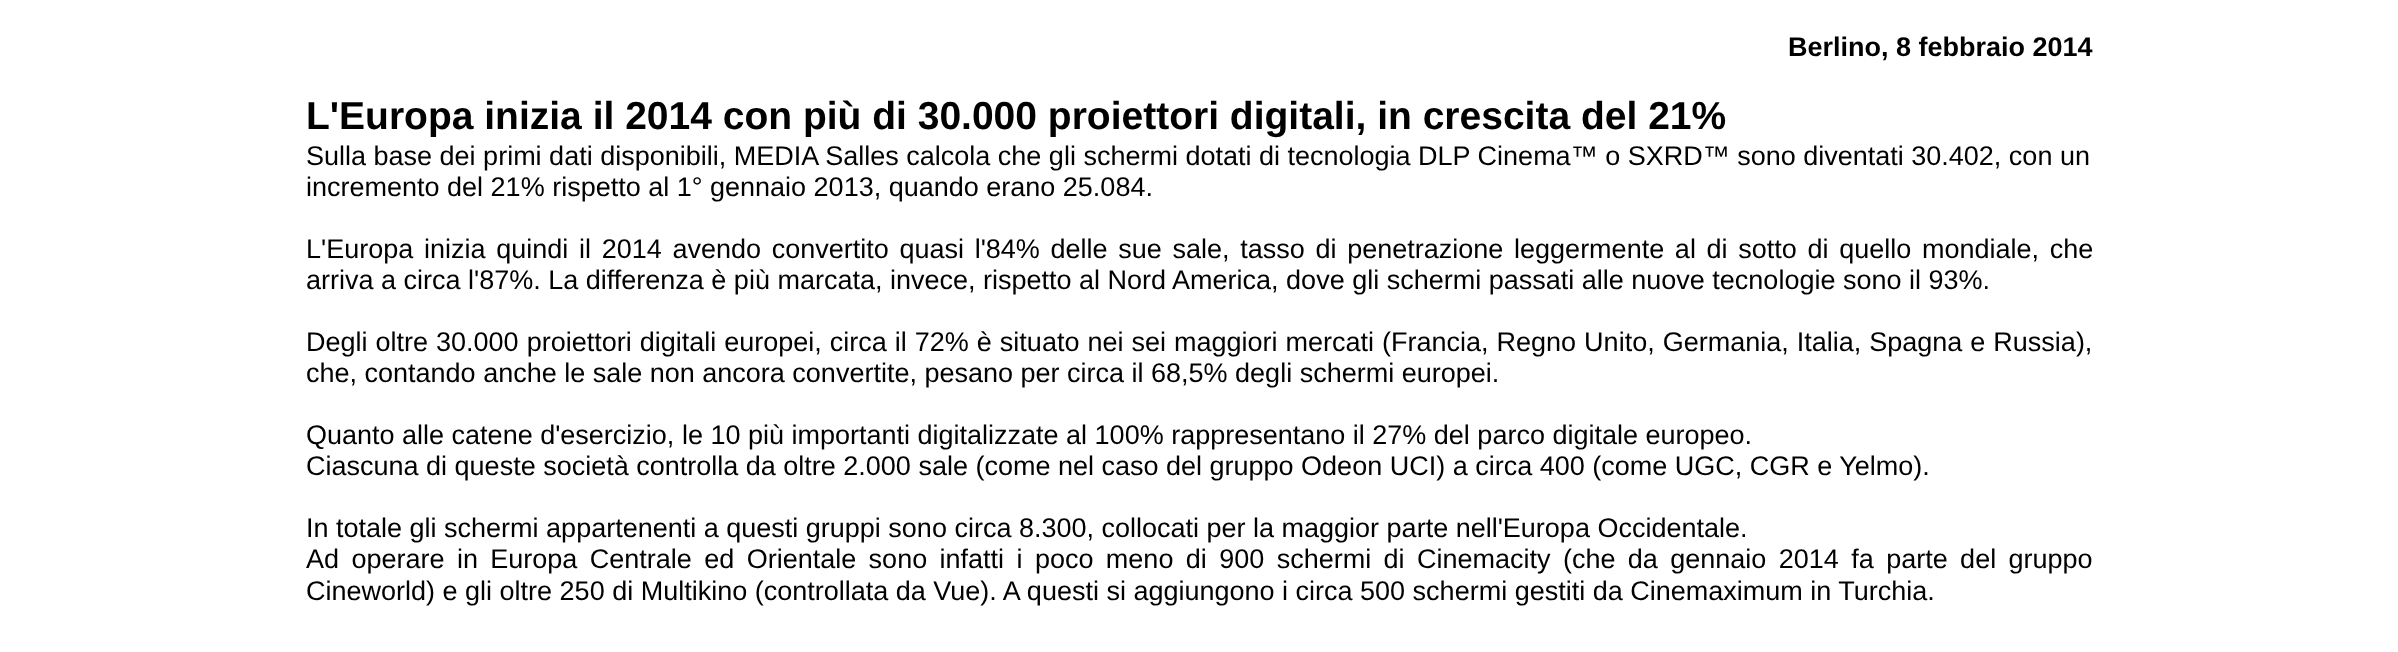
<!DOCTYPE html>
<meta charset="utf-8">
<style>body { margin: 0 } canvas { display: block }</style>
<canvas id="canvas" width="2398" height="652"></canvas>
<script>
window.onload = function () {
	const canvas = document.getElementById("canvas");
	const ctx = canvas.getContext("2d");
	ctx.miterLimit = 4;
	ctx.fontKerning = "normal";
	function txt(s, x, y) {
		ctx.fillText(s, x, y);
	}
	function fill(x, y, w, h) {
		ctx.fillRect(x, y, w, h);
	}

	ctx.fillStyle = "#FFFFFF";
	fill(0, 0, 2398, 652);
	ctx.font = "bold 27px Liberation Sans";
	ctx.fillStyle = "#000000";
	txt("Berlino, 8 febbraio 2014", 1788, 56);
	ctx.font = "bold 39px Liberation Sans";
	txt("L'Europa inizia il 2014 con più di 30.000 proiettori digitali, in crescita del 21%", 306, 129);
	ctx.font = "27px Liberation Sans";
	txt("Sulla base dei primi dati disponibili, MEDIA Salles calcola che gli schermi dotati di tecnologia DLP Cinema™ o SXRD™ sono diventati 30.402, con un", 306, 165);
	txt("incremento del 21% rispetto al 1° gennaio 2013, quando erano 25.084.", 306, 196);
	ctx.wordSpacing = "3.2px";
	txt("L'Europa inizia quindi il 2014 avendo convertito quasi l'84% delle sue sale, tasso di penetrazione leggermente al di sotto di quello mondiale, che", 306, 258);
	ctx.wordSpacing = "0px";
	txt("arriva a circa l'87%. La differenza è più marcata, invece, rispetto al Nord America, dove gli schermi passati alle nuove tecnologie sono il 93%.", 306, 289);
	ctx.wordSpacing = "0.5px";
	txt("Degli oltre 30.000 proiettori digitali europei, circa il 72% è situato nei sei maggiori mercati (Francia, Regno Unito, Germania, Italia, Spagna e Russia),", 306, 351);
	ctx.wordSpacing = "0px";
	txt("che, contando anche le sale non ancora convertite, pesano per circa il 68,5% degli schermi europei.", 306, 382);
	txt("Quanto alle catene d'esercizio, le 10 più importanti digitalizzate al 100% rappresentano il 27% del parco digitale europeo.", 306, 444);
	txt("Ciascuna di queste società controlla da oltre 2.000 sale (come nel caso del gruppo Odeon UCI) a circa 400 (come UGC, CGR e Yelmo).", 306, 475);
	txt("In totale gli schermi appartenenti a questi gruppi sono circa 8.300, collocati per la maggior parte nell'Europa Occidentale.", 306, 537);
	ctx.wordSpacing = "4.9px";
	txt("Ad operare in Europa Centrale ed Orientale sono infatti i poco meno di 900 schermi di Cinemacity (che da gennaio 2014 fa parte del gruppo", 306, 568);
	ctx.wordSpacing = "0px";
	txt("Cineworld) e gli oltre 250 di Multikino (controllata da Vue). A questi si aggiungono i circa 500 schermi gestiti da Cinemaximum in Turchia.", 306, 600);
};
</script>
